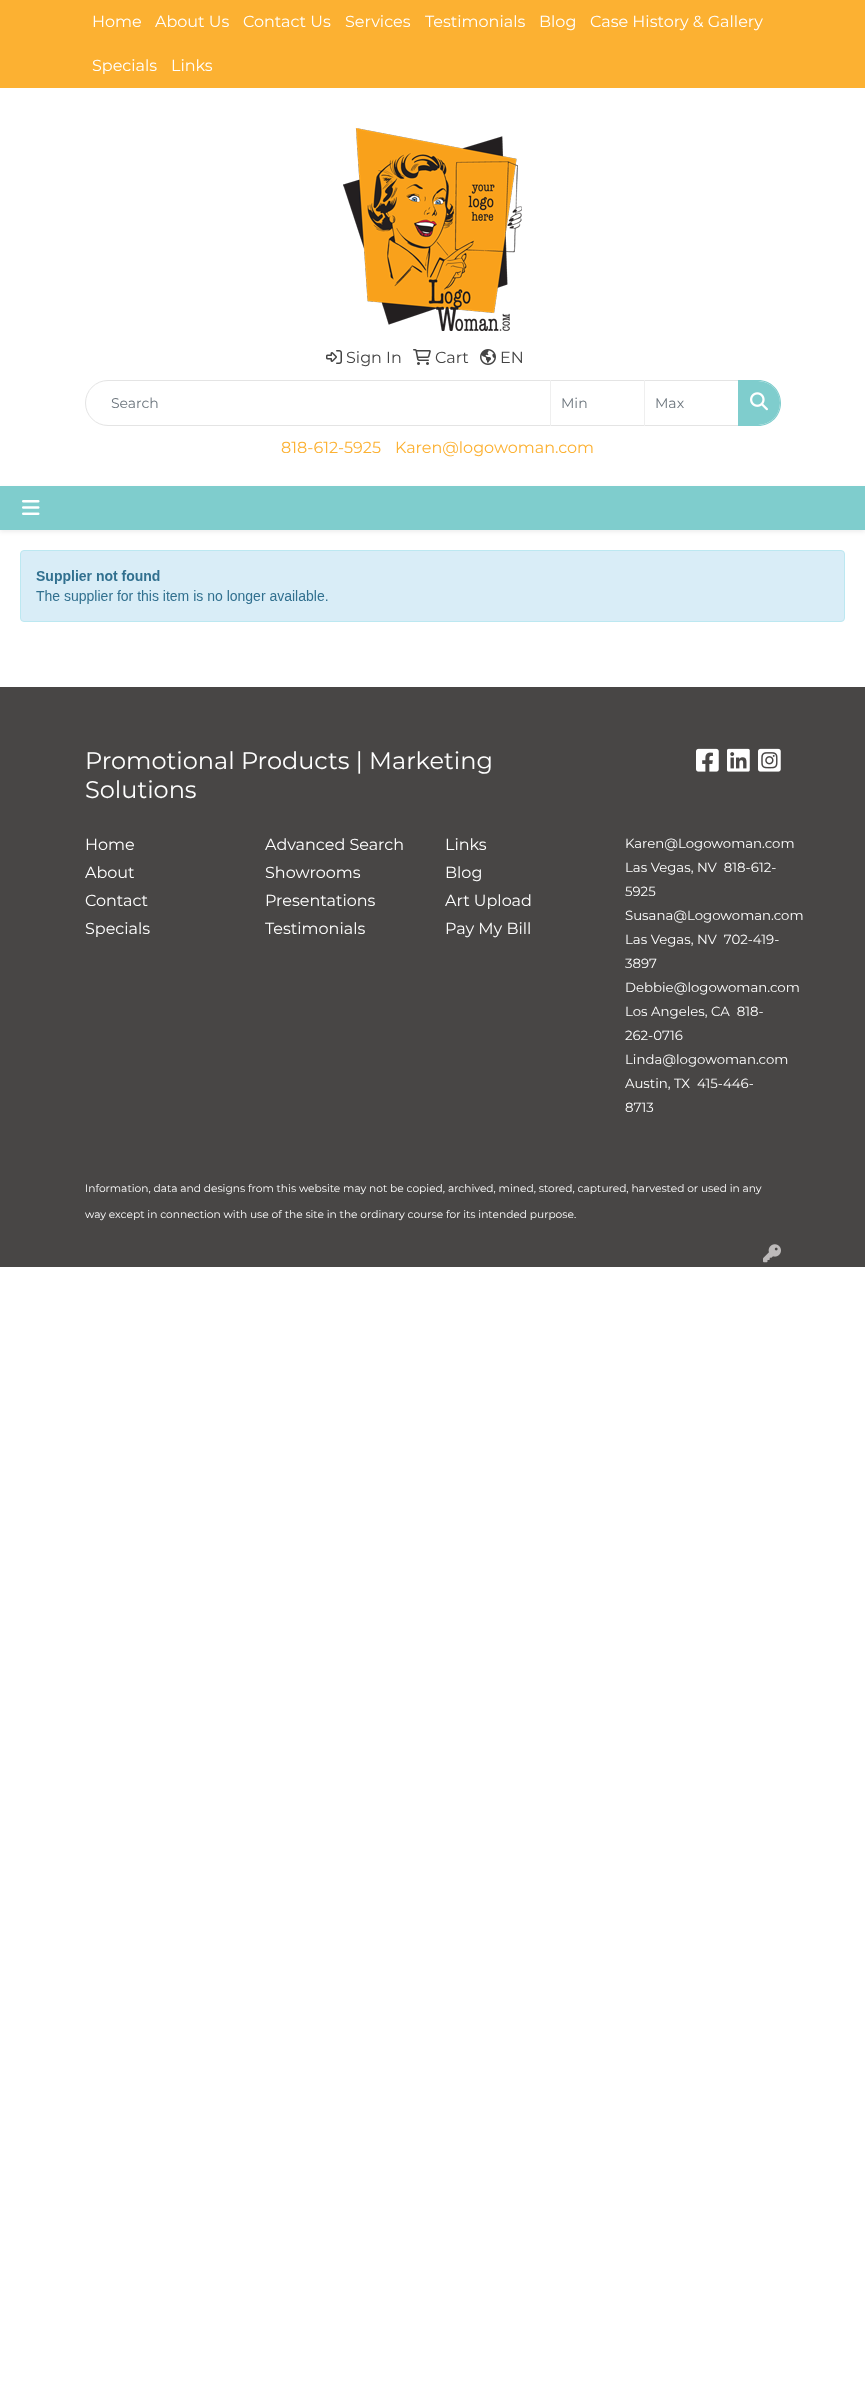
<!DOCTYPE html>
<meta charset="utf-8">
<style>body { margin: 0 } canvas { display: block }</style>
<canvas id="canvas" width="865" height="2397"></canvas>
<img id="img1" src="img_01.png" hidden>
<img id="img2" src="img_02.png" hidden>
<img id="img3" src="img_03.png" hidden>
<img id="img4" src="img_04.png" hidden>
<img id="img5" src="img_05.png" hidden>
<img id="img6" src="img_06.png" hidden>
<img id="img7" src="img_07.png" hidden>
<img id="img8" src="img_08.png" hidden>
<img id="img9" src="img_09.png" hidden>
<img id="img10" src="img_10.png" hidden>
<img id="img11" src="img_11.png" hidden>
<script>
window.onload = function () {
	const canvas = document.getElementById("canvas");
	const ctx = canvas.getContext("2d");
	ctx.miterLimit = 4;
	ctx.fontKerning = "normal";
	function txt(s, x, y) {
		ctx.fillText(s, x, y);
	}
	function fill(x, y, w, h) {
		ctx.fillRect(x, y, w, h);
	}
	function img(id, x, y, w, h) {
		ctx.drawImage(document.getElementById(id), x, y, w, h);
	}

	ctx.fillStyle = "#FFFFFF";
	fill(0, 0, 865, 2397);
	ctx.fillStyle = "#FCB132";
	fill(0, 0, 865, 88);
	img("img1", 343, 128, 179, 203);
	img("img2", 326, 350, 16, 14);
	img("img3", 413, 349, 18, 16);
	img("img4", 480, 349, 16, 16);
	ctx.beginPath();
	ctx.roundRect(85.5, 380.5, 465, 45, [22.5, 0, 0, 22.5]);
	ctx.strokeStyle = "#E4E4E4";
	ctx.stroke();
	ctx.fillStyle = "#E4E4E4";
	fill(550, 380, 189, 1);
	fill(550, 425, 189, 1);
	ctx.fillStyle = "#EFEFEF";
	fill(550, 380, 1, 46);
	fill(644, 380, 1, 46);
	ctx.fillStyle = "#7FCDCD";
	ctx.beginPath();
	ctx.roundRect(738, 381, 42, 44, [0, 22, 22, 0]);
	ctx.fill();
	ctx.beginPath();
	ctx.moveTo(738, 380);
	ctx.lineTo(758, 380);
	ctx.bezierCurveTo(771, 380, 781, 390, 781, 403);
	ctx.bezierCurveTo(781, 416, 771, 426, 758, 426);
	ctx.lineTo(738, 426);
	ctx.closePath();
	ctx.moveTo(738, 381);
	ctx.lineTo(758, 381);
	ctx.bezierCurveTo(770, 381, 780, 391, 780, 403);
	ctx.bezierCurveTo(780, 415, 770, 425, 758, 425);
	ctx.lineTo(738, 425);
	ctx.closePath();
	ctx.fill("evenodd");
	img("img5", 750, 392, 18, 19);
	ctx.fillStyle = "rgba(0, 0, 0, 0.07)";
	ctx.filter = "blur(2px)";
	ctx.beginPath();
	ctx.rect(0, 488, 865, 44);
	ctx.fill();
	ctx.filter = "none";
	ctx.fillStyle = "#7FCDCD";
	fill(0, 486, 865, 44);
	img("img6", 22, 500, 18, 15);
	img("img7", 20, 550, 825, 72);
	ctx.fillStyle = "#484645";
	fill(0, 687, 865, 580);
	img("img8", 696, 748, 23, 24);
	img("img9", 727, 748, 23, 24);
	img("img10", 758, 748, 23, 24);
	img("img11", 763, 1244, 18, 19);
	ctx.font = "100 16px Montserrat";
	ctx.fillStyle = "#FFFFFF";
	txt("Home", 92, 27);
	txt("About Us", 155, 27);
	txt("Contact Us", 243, 27);
	txt("Services", 345, 27);
	txt("Testimonials", 425, 27);
	txt("Blog", 539, 27);
	txt("Case History & Gallery", 590, 27);
	txt("Specials", 92, 71);
	txt("Links", 171, 71);
	ctx.fillStyle = "#444444";
	txt("Sign In", 346, 363);
	txt("Cart", 435, 363);
	txt("EN", 500, 363);
	ctx.font = "100 14px Montserrat";
	ctx.fillStyle = "#6C757D";
	txt("Search", 111, 408);
	txt("Min", 561, 408);
	txt("Max", 655, 408);
	ctx.font = "100 16px Montserrat";
	ctx.fillStyle = "#FCB132";
	txt("818-612-5925", 281, 453);
	txt("Karen@logowoman.com", 395, 453);
	ctx.font = "100 24px Montserrat";
	ctx.fillStyle = "#FFFFFF";
	txt("Promotional Products | Marketing", 85, 769);
	txt("Solutions", 85, 798);
	ctx.font = "100 16px Montserrat";
	txt("Home", 85, 850);
	txt("About", 85, 878);
	txt("Contact", 85, 906);
	txt("Specials", 85, 934);
	txt("Advanced Search", 265, 850);
	txt("Showrooms", 265, 878);
	txt("Presentations", 265, 906);
	txt("Testimonials", 265, 934);
	txt("Links", 445, 850);
	txt("Blog", 445, 878);
	txt("Art Upload", 445, 906);
	txt("Pay My Bill", 445, 934);
	ctx.font = "100 13.3px Montserrat";
	txt("Karen@Logowoman.com", 625, 848);
	txt("Las Vegas, NV  818-612-", 625, 872);
	txt("5925", 625, 896);
	txt("Susana@Logowoman.com", 625, 920);
	txt("Las Vegas, NV  702-419-", 625, 944);
	txt("3897", 625, 968);
	txt("Debbie@logowoman.com", 625, 992);
	txt("Los Angeles, CA  818-", 625, 1016);
	txt("262-0716", 625, 1040);
	txt("Linda@logowoman.com", 625, 1064);
	txt("Austin, TX  415-446-", 625, 1088);
	txt("8713", 625, 1112);
	ctx.font = "100 10.67px Montserrat";
	txt("Information, data and designs from this website may not be copied, archived, mined, stored, captured, harvested or used in any", 85, 1192);
	txt("way except in connection with use of the site in the ordinary course for its intended purpose.", 85, 1218);
};
</script>
